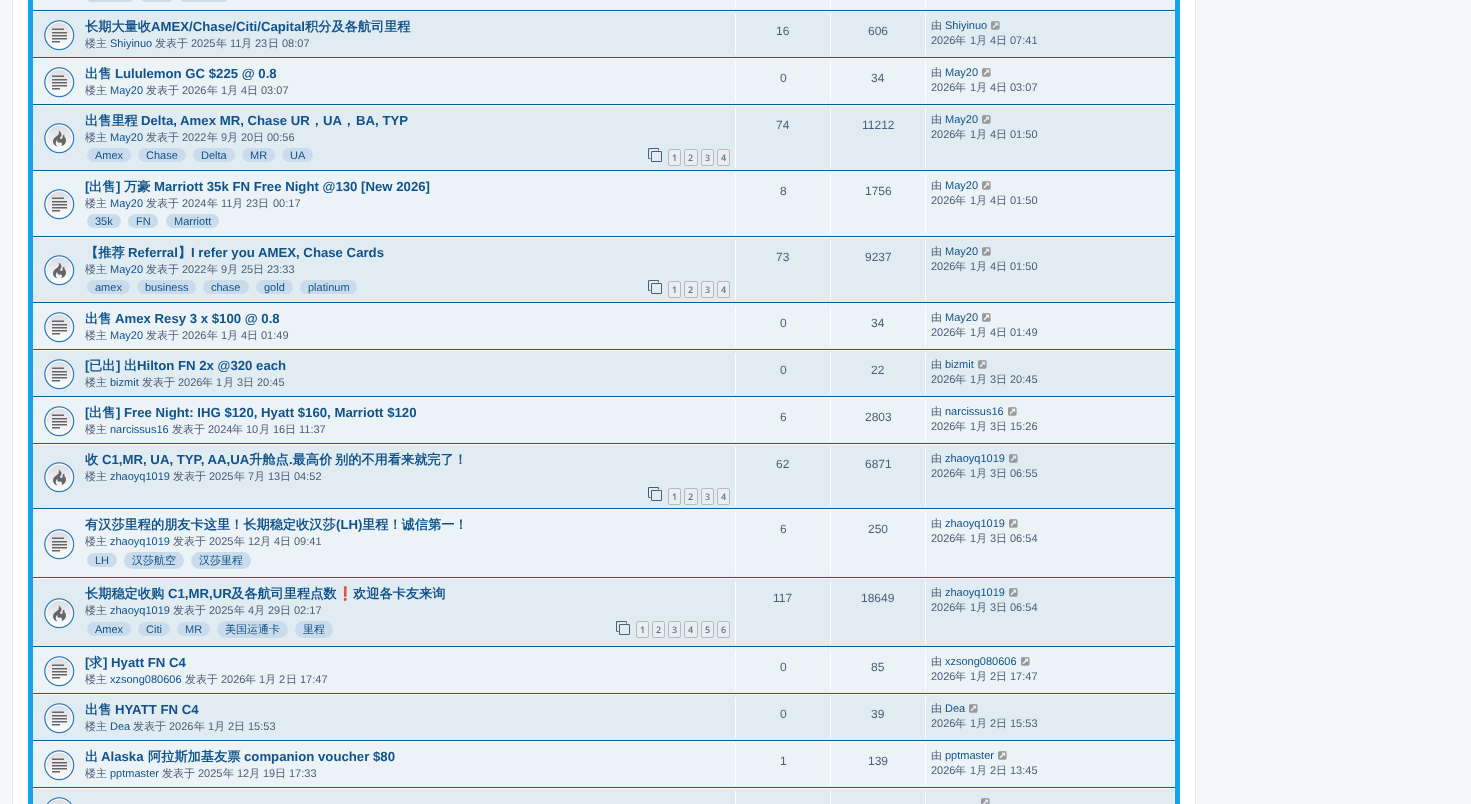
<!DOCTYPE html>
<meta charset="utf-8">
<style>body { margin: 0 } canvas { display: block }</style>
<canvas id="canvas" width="1471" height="804"></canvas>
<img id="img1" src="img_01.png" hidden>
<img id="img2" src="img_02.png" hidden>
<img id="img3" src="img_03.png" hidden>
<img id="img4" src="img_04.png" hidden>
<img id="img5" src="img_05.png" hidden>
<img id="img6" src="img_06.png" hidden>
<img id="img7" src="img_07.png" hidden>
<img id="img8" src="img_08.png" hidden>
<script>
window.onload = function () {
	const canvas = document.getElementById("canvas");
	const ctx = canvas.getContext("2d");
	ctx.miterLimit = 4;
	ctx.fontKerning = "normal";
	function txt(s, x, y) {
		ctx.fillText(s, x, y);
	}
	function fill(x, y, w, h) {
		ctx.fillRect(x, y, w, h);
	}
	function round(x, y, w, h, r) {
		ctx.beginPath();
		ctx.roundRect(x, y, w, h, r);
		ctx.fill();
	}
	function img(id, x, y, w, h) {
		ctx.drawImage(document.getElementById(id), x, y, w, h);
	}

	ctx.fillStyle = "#F5F7FA";
	fill(0, 0, 1471, 804);
	ctx.fillStyle = "#FFFFFF";
	ctx.beginPath();
	ctx.rect(12.5, -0.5, 1183, 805);
	ctx.fill();
	ctx.strokeStyle = "#E6E9ED";
	ctx.stroke();
	ctx.fillStyle = "#12A3EB";
	fill(28, 0, 1152, 804);
	ctx.fillStyle = "#ECF3F7";
	fill(33, 0, 1142, 10);
	ctx.fillStyle = "#00608F";
	fill(33, 10, 1142, 1);
	ctx.fillStyle = "#CADCEB";
	round(87, -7, 47, 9, 7);
	round(141, -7, 32, 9, 7);
	round(180, -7, 48, 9, 7);
	ctx.fillStyle = "#FFFFFF";
	fill(735, 0, 1, 8);
	fill(830, 0, 1, 8);
	fill(925, 0, 1, 8);
	ctx.fillStyle = "#E1EBF2";
	fill(33, 12, 1142, 45);
	ctx.fillStyle = "#FFFFFF";
	fill(33, 11, 1142, 1);
	ctx.fillStyle = "#00608F";
	fill(33, 57, 1142, 1);
	img("img1", 44, 20, 31, 31);
	ctx.fillStyle = "#FFFFFF";
	fill(735, 14, 1, 41);
	fill(830, 14, 1, 41);
	fill(925, 14, 1, 41);
	img("img2", 991, 21, 9, 9);
	ctx.fillStyle = "#ECF3F7";
	fill(33, 59, 1142, 45);
	ctx.fillStyle = "#FFFFFF";
	fill(33, 58, 1142, 1);
	ctx.fillStyle = "#00608F";
	fill(33, 104, 1142, 1);
	img("img3", 44, 67, 31, 31);
	ctx.fillStyle = "#FFFFFF";
	fill(735, 61, 1, 41);
	fill(830, 61, 1, 41);
	fill(925, 61, 1, 41);
	img("img4", 982, 68, 9, 9);
	ctx.fillStyle = "#E1EBF2";
	fill(33, 106, 1142, 64);
	ctx.fillStyle = "#FFFFFF";
	fill(33, 105, 1142, 1);
	ctx.fillStyle = "#00608F";
	fill(33, 170, 1142, 1);
	img("img5", 44, 123, 31, 31);
	ctx.fillStyle = "#CADCEB";
	round(87, 148, 44, 14, 7);
	round(138, 148, 48, 14, 7);
	round(193, 148, 42, 14, 7);
	round(242, 148, 33, 14, 7);
	round(282, 148, 31, 14, 7);
	img("img6", 648, 148, 14, 14);
	ctx.fillStyle = "#ECEDEE";
	ctx.beginPath();
	ctx.roundRect(668.5, 149.5, 12, 16, 1.5);
	ctx.fill();
	ctx.strokeStyle = "#B4BAC0";
	ctx.stroke();
	ctx.beginPath();
	ctx.roundRect(684.5, 149.5, 13, 16, 1.5);
	ctx.fill();
	ctx.stroke();
	ctx.beginPath();
	ctx.roundRect(701.5, 149.5, 12, 16, 1.5);
	ctx.fill();
	ctx.stroke();
	ctx.beginPath();
	ctx.roundRect(717.5, 149.5, 12, 16, 1.5);
	ctx.fill();
	ctx.stroke();
	ctx.fillStyle = "#FFFFFF";
	fill(735, 108, 1, 60);
	fill(830, 108, 1, 60);
	fill(925, 108, 1, 60);
	img("img2", 982, 115, 9, 9);
	ctx.fillStyle = "#ECF3F7";
	fill(33, 172, 1142, 64);
	ctx.fillStyle = "#FFFFFF";
	fill(33, 171, 1142, 1);
	ctx.fillStyle = "#00608F";
	fill(33, 236, 1142, 1);
	img("img3", 44, 189, 31, 31);
	ctx.fillStyle = "#CADCEB";
	round(87, 214, 34, 14, 7);
	round(128, 214, 30, 14, 7);
	round(166, 214, 53, 14, 7);
	ctx.fillStyle = "#FFFFFF";
	fill(735, 174, 1, 60);
	fill(830, 174, 1, 60);
	fill(925, 174, 1, 60);
	img("img4", 982, 181, 9, 9);
	ctx.fillStyle = "#E1EBF2";
	fill(33, 238, 1142, 64);
	ctx.fillStyle = "#FFFFFF";
	fill(33, 237, 1142, 1);
	ctx.fillStyle = "#00608F";
	fill(33, 302, 1142, 1);
	img("img5", 44, 255, 31, 31);
	ctx.fillStyle = "#CADCEB";
	round(87, 280, 43, 14, 7);
	round(137, 280, 59, 14, 7);
	round(203, 280, 46, 14, 7);
	round(256, 280, 37, 14, 7);
	round(300, 280, 57, 14, 7);
	img("img6", 648, 280, 14, 14);
	ctx.fillStyle = "#ECEDEE";
	ctx.beginPath();
	ctx.roundRect(668.5, 281.5, 12, 16, 1.5);
	ctx.fill();
	ctx.stroke();
	ctx.beginPath();
	ctx.roundRect(684.5, 281.5, 13, 16, 1.5);
	ctx.fill();
	ctx.stroke();
	ctx.beginPath();
	ctx.roundRect(701.5, 281.5, 12, 16, 1.5);
	ctx.fill();
	ctx.stroke();
	ctx.beginPath();
	ctx.roundRect(717.5, 281.5, 12, 16, 1.5);
	ctx.fill();
	ctx.stroke();
	ctx.fillStyle = "#FFFFFF";
	fill(735, 240, 1, 60);
	fill(830, 240, 1, 60);
	fill(925, 240, 1, 60);
	img("img2", 982, 247, 9, 9);
	ctx.fillStyle = "#ECF3F7";
	fill(33, 304, 1142, 45);
	ctx.fillStyle = "#FFFFFF";
	fill(33, 303, 1142, 1);
	ctx.fillStyle = "#00608F";
	fill(33, 349, 1142, 1);
	img("img3", 44, 312, 31, 31);
	ctx.fillStyle = "#FFFFFF";
	fill(735, 306, 1, 41);
	fill(830, 306, 1, 41);
	fill(925, 306, 1, 41);
	img("img4", 982, 313, 9, 9);
	ctx.fillStyle = "#E1EBF2";
	fill(33, 351, 1142, 45);
	ctx.fillStyle = "#FFFFFF";
	fill(33, 350, 1142, 1);
	ctx.fillStyle = "#00608F";
	fill(33, 396, 1142, 1);
	img("img1", 44, 359, 31, 31);
	ctx.fillStyle = "#FFFFFF";
	fill(735, 353, 1, 41);
	fill(830, 353, 1, 41);
	fill(925, 353, 1, 41);
	img("img2", 978, 360, 9, 9);
	ctx.fillStyle = "#ECF3F7";
	fill(33, 398, 1142, 45);
	ctx.fillStyle = "#FFFFFF";
	fill(33, 397, 1142, 1);
	ctx.fillStyle = "#00608F";
	fill(33, 443, 1142, 1);
	img("img3", 44, 406, 31, 31);
	ctx.fillStyle = "#FFFFFF";
	fill(735, 400, 1, 41);
	fill(830, 400, 1, 41);
	fill(925, 400, 1, 41);
	img("img4", 1008, 407, 9, 9);
	ctx.fillStyle = "#E1EBF2";
	fill(33, 445, 1142, 63);
	ctx.fillStyle = "#FFFFFF";
	fill(33, 444, 1142, 1);
	ctx.fillStyle = "#00608F";
	fill(33, 508, 1142, 1);
	img("img5", 44, 462, 31, 31);
	img("img6", 648, 487, 14, 14);
	ctx.fillStyle = "#ECEDEE";
	ctx.beginPath();
	ctx.roundRect(668.5, 488.5, 12, 16, 1.5);
	ctx.fill();
	ctx.stroke();
	ctx.beginPath();
	ctx.roundRect(684.5, 488.5, 13, 16, 1.5);
	ctx.fill();
	ctx.stroke();
	ctx.beginPath();
	ctx.roundRect(701.5, 488.5, 12, 16, 1.5);
	ctx.fill();
	ctx.stroke();
	ctx.beginPath();
	ctx.roundRect(717.5, 488.5, 12, 16, 1.5);
	ctx.fill();
	ctx.stroke();
	ctx.fillStyle = "#FFFFFF";
	fill(735, 447, 1, 59);
	fill(830, 447, 1, 59);
	fill(925, 447, 1, 59);
	img("img2", 1009, 454, 9, 9);
	ctx.fillStyle = "#ECF3F7";
	fill(33, 510, 1142, 67);
	ctx.fillStyle = "#FFFFFF";
	fill(33, 509, 1142, 1);
	ctx.fillStyle = "#00608F";
	fill(33, 577, 1142, 1);
	img("img3", 44, 529, 31, 31);
	ctx.fillStyle = "#CADCEB";
	round(87, 553, 30, 14, 7);
	round(124, 552, 60, 17, 8.5);
	round(191, 552, 60, 17, 8.5);
	ctx.fillStyle = "#FFFFFF";
	fill(735, 512, 1, 63);
	fill(830, 512, 1, 63);
	fill(925, 512, 1, 63);
	img("img4", 1009, 519, 9, 9);
	ctx.fillStyle = "#E1EBF2";
	fill(33, 579, 1142, 67);
	ctx.fillStyle = "#FFFFFF";
	fill(33, 578, 1142, 1);
	ctx.fillStyle = "#00608F";
	fill(33, 646, 1142, 1);
	img("img5", 44, 598, 31, 31);
	ctx.fillStyle = "#CADCEB";
	round(87, 622, 44, 14, 7);
	round(138, 622, 32, 14, 7);
	round(177, 622, 33, 14, 7);
	round(217, 621, 71, 17, 8.5);
	round(295, 621, 38, 17, 8.5);
	img("img6", 616, 621, 14, 14);
	ctx.fillStyle = "#ECEDEE";
	ctx.beginPath();
	ctx.roundRect(636.5, 621.5, 12, 16, 1.5);
	ctx.fill();
	ctx.stroke();
	ctx.beginPath();
	ctx.roundRect(652.5, 621.5, 12, 16, 1.5);
	ctx.fill();
	ctx.stroke();
	ctx.beginPath();
	ctx.roundRect(668.5, 621.5, 12, 16, 1.5);
	ctx.fill();
	ctx.stroke();
	ctx.beginPath();
	ctx.roundRect(684.5, 621.5, 13, 16, 1.5);
	ctx.fill();
	ctx.stroke();
	ctx.beginPath();
	ctx.roundRect(701.5, 621.5, 12, 16, 1.5);
	ctx.fill();
	ctx.stroke();
	ctx.beginPath();
	ctx.roundRect(717.5, 621.5, 12, 16, 1.5);
	ctx.fill();
	ctx.stroke();
	ctx.fillStyle = "#FFFFFF";
	fill(735, 581, 1, 63);
	fill(830, 581, 1, 63);
	fill(925, 581, 1, 63);
	img("img2", 1009, 588, 9, 9);
	ctx.fillStyle = "#ECF3F7";
	fill(33, 648, 1142, 45);
	ctx.fillStyle = "#FFFFFF";
	fill(33, 647, 1142, 1);
	ctx.fillStyle = "#00608F";
	fill(33, 693, 1142, 1);
	img("img3", 44, 656, 31, 31);
	ctx.fillStyle = "#FFFFFF";
	fill(735, 650, 1, 41);
	fill(830, 650, 1, 41);
	fill(925, 650, 1, 41);
	img("img4", 1021, 657, 9, 9);
	ctx.fillStyle = "#E1EBF2";
	fill(33, 695, 1142, 45);
	ctx.fillStyle = "#FFFFFF";
	fill(33, 694, 1142, 1);
	ctx.fillStyle = "#00608F";
	fill(33, 740, 1142, 1);
	img("img1", 44, 703, 31, 31);
	ctx.fillStyle = "#FFFFFF";
	fill(735, 697, 1, 41);
	fill(830, 697, 1, 41);
	fill(925, 697, 1, 41);
	img("img2", 969, 704, 9, 9);
	ctx.fillStyle = "#ECF3F7";
	fill(33, 742, 1142, 45);
	ctx.fillStyle = "#FFFFFF";
	fill(33, 741, 1142, 1);
	ctx.fillStyle = "#00608F";
	fill(33, 787, 1142, 1);
	img("img3", 44, 750, 31, 31);
	ctx.fillStyle = "#FFFFFF";
	fill(735, 744, 1, 41);
	fill(830, 744, 1, 41);
	fill(925, 744, 1, 41);
	img("img4", 998, 751, 9, 9);
	ctx.fillStyle = "#E1EBF2";
	fill(33, 789, 1142, 15);
	ctx.fillStyle = "#FFFFFF";
	fill(33, 788, 1142, 1);
	img("img7", 46, 797, 26, 7);
	fill(735, 791, 1, 13);
	fill(830, 791, 1, 13);
	fill(925, 791, 1, 13);
	img("img8", 981, 798, 9, 6);
	ctx.font = "bold 13.2px WenQuanYi Zen Hei";
	ctx.fillStyle = "#105289";
	txt("长期大量收", 85, 31);
	ctx.font = "bold 13.2px Liberation Sans";
	txt("AMEX/Chase/Citi/Capital", 151, 31);
	ctx.font = "bold 13.2px WenQuanYi Zen Hei";
	txt("积分及各航司里程", 305, 31);
	ctx.font = "500 11px WenQuanYi Zen Hei";
	ctx.fillStyle = "#4C5D77";
	txt("楼主", 85, 47);
	ctx.font = "11px Liberation Sans";
	ctx.fillStyle = "#105289";
	txt("Shiyinuo", 110, 47);
	ctx.font = "500 11px WenQuanYi Zen Hei";
	ctx.fillStyle = "#4C5D77";
	txt("发表于", 155, 47);
	ctx.font = "11px Liberation Sans";
	txt("2025", 191, 47);
	ctx.font = "500 11px WenQuanYi Zen Hei";
	txt("年", 216, 47);
	ctx.font = "11px Liberation Sans";
	txt("11", 230, 47);
	ctx.font = "500 11px WenQuanYi Zen Hei";
	txt("月", 241, 47);
	ctx.font = "11px Liberation Sans";
	txt("23", 255, 47);
	ctx.font = "500 11px WenQuanYi Zen Hei";
	txt("日", 268, 47);
	ctx.font = "11px Liberation Sans";
	txt("08:07", 282, 47);
	ctx.font = "12px Liberation Sans";
	txt("16", 776, 35);
	txt("606", 868, 35);
	ctx.font = "500 11px WenQuanYi Zen Hei";
	txt("由", 931, 29);
	ctx.font = "11px Liberation Sans";
	ctx.fillStyle = "#105289";
	txt("Shiyinuo", 945, 29);
	ctx.fillStyle = "#4C5D77";
	txt("2026", 931, 44);
	ctx.font = "500 11px WenQuanYi Zen Hei";
	txt("年", 955, 44);
	ctx.font = "11px Liberation Sans";
	txt("1", 970, 44);
	ctx.font = "500 11px WenQuanYi Zen Hei";
	txt("月", 976, 44);
	ctx.font = "11px Liberation Sans";
	txt("4", 990, 44);
	ctx.font = "500 11px WenQuanYi Zen Hei";
	txt("日", 996, 44);
	ctx.font = "11px Liberation Sans";
	txt("07:41", 1010, 44);
	ctx.font = "bold 13.2px WenQuanYi Zen Hei";
	ctx.fillStyle = "#105289";
	txt("出售", 85, 78);
	ctx.font = "bold 13.2px Liberation Sans";
	txt("Lululemon GC $225 @ 0.8", 115, 78);
	ctx.font = "500 11px WenQuanYi Zen Hei";
	ctx.fillStyle = "#4C5D77";
	txt("楼主", 85, 94);
	ctx.font = "11px Liberation Sans";
	ctx.fillStyle = "#105289";
	txt("May20", 110, 94);
	ctx.font = "500 11px WenQuanYi Zen Hei";
	ctx.fillStyle = "#4C5D77";
	txt("发表于", 146, 94);
	ctx.font = "11px Liberation Sans";
	txt("2026", 182, 94);
	ctx.font = "500 11px WenQuanYi Zen Hei";
	txt("年", 207, 94);
	ctx.font = "11px Liberation Sans";
	txt("1", 221, 94);
	ctx.font = "500 11px WenQuanYi Zen Hei";
	txt("月", 227, 94);
	ctx.font = "11px Liberation Sans";
	txt("4", 241, 94);
	ctx.font = "500 11px WenQuanYi Zen Hei";
	txt("日", 247, 94);
	ctx.font = "11px Liberation Sans";
	txt("03:07", 261, 94);
	ctx.font = "12px Liberation Sans";
	txt("0", 780, 82);
	txt("34", 871, 82);
	ctx.font = "500 11px WenQuanYi Zen Hei";
	txt("由", 931, 76);
	ctx.font = "11px Liberation Sans";
	ctx.fillStyle = "#105289";
	txt("May20", 945, 76);
	ctx.fillStyle = "#4C5D77";
	txt("2026", 931, 91);
	ctx.font = "500 11px WenQuanYi Zen Hei";
	txt("年", 955, 91);
	ctx.font = "11px Liberation Sans";
	txt("1", 970, 91);
	ctx.font = "500 11px WenQuanYi Zen Hei";
	txt("月", 976, 91);
	ctx.font = "11px Liberation Sans";
	txt("4", 990, 91);
	ctx.font = "500 11px WenQuanYi Zen Hei";
	txt("日", 996, 91);
	ctx.font = "11px Liberation Sans";
	txt("03:07", 1010, 91);
	ctx.font = "bold 13.2px WenQuanYi Zen Hei";
	ctx.fillStyle = "#105289";
	txt("出售里程", 85, 125);
	ctx.font = "bold 13.2px Liberation Sans";
	txt("Delta, Amex MR, Chase UR", 141, 125);
	ctx.font = "bold 13.2px WenQuanYi Zen Hei";
	txt("，", 310, 125);
	ctx.font = "bold 13.2px Liberation Sans";
	txt("UA", 323, 125);
	ctx.font = "bold 13.2px WenQuanYi Zen Hei";
	txt("，", 342, 125);
	ctx.font = "bold 13.2px Liberation Sans";
	txt("BA, TYP", 356, 125);
	ctx.font = "500 11px WenQuanYi Zen Hei";
	ctx.fillStyle = "#4C5D77";
	txt("楼主", 85, 141);
	ctx.font = "11px Liberation Sans";
	ctx.fillStyle = "#105289";
	txt("May20", 110, 141);
	ctx.font = "500 11px WenQuanYi Zen Hei";
	ctx.fillStyle = "#4C5D77";
	txt("发表于", 146, 141);
	ctx.font = "11px Liberation Sans";
	txt("2022", 182, 141);
	ctx.font = "500 11px WenQuanYi Zen Hei";
	txt("年", 207, 141);
	ctx.font = "11px Liberation Sans";
	txt("9", 221, 141);
	ctx.font = "500 11px WenQuanYi Zen Hei";
	txt("月", 227, 141);
	ctx.font = "11px Liberation Sans";
	txt("20", 241, 141);
	ctx.font = "500 11px WenQuanYi Zen Hei";
	txt("日", 253, 141);
	ctx.font = "11px Liberation Sans";
	txt("00:56", 267, 141);
	ctx.fillStyle = "#105289";
	txt("Amex", 95, 159);
	txt("Chase", 146, 159);
	txt("Delta", 201, 159);
	txt("MR", 250, 159);
	txt("UA", 290, 159);
	ctx.font = "600 9px Open Sans";
	ctx.fillStyle = "#5C758C";
	txt("1", 672, 161);
	txt("2", 688, 161);
	txt("3", 705, 161);
	txt("4", 721, 161);
	ctx.font = "12px Liberation Sans";
	ctx.fillStyle = "#4C5D77";
	txt("74", 776, 129);
	txt("11212", 862, 129);
	ctx.font = "500 11px WenQuanYi Zen Hei";
	txt("由", 931, 123);
	ctx.font = "11px Liberation Sans";
	ctx.fillStyle = "#105289";
	txt("May20", 945, 123);
	ctx.fillStyle = "#4C5D77";
	txt("2026", 931, 138);
	ctx.font = "500 11px WenQuanYi Zen Hei";
	txt("年", 955, 138);
	ctx.font = "11px Liberation Sans";
	txt("1", 970, 138);
	ctx.font = "500 11px WenQuanYi Zen Hei";
	txt("月", 976, 138);
	ctx.font = "11px Liberation Sans";
	txt("4", 990, 138);
	ctx.font = "500 11px WenQuanYi Zen Hei";
	txt("日", 996, 138);
	ctx.font = "11px Liberation Sans";
	txt("01:50", 1010, 138);
	ctx.font = "bold 13.2px Liberation Sans";
	ctx.fillStyle = "#105289";
	txt("[", 85, 191);
	ctx.font = "bold 13.2px WenQuanYi Zen Hei";
	txt("出售", 89, 191);
	ctx.font = "bold 13.2px Liberation Sans";
	txt("]", 116, 191);
	ctx.font = "bold 13.2px WenQuanYi Zen Hei";
	txt("万豪", 124, 191);
	ctx.font = "bold 13.2px Liberation Sans";
	txt("Marriott 35k FN Free Night @130 [New 2026]", 154, 191);
	ctx.font = "500 11px WenQuanYi Zen Hei";
	ctx.fillStyle = "#4C5D77";
	txt("楼主", 85, 207);
	ctx.font = "11px Liberation Sans";
	ctx.fillStyle = "#105289";
	txt("May20", 110, 207);
	ctx.font = "500 11px WenQuanYi Zen Hei";
	ctx.fillStyle = "#4C5D77";
	txt("发表于", 146, 207);
	ctx.font = "11px Liberation Sans";
	txt("2024", 182, 207);
	ctx.font = "500 11px WenQuanYi Zen Hei";
	txt("年", 207, 207);
	ctx.font = "11px Liberation Sans";
	txt("11", 221, 207);
	ctx.font = "500 11px WenQuanYi Zen Hei";
	txt("月", 232, 207);
	ctx.font = "11px Liberation Sans";
	txt("23", 246, 207);
	ctx.font = "500 11px WenQuanYi Zen Hei";
	txt("日", 258, 207);
	ctx.font = "11px Liberation Sans";
	txt("00:17", 273, 207);
	ctx.fillStyle = "#105289";
	txt("35k", 95, 225);
	txt("FN", 136, 225);
	txt("Marriott", 174, 225);
	ctx.font = "12px Liberation Sans";
	ctx.fillStyle = "#4C5D77";
	txt("8", 780, 195);
	txt("1756", 865, 195);
	ctx.font = "500 11px WenQuanYi Zen Hei";
	txt("由", 931, 189);
	ctx.font = "11px Liberation Sans";
	ctx.fillStyle = "#105289";
	txt("May20", 945, 189);
	ctx.fillStyle = "#4C5D77";
	txt("2026", 931, 204);
	ctx.font = "500 11px WenQuanYi Zen Hei";
	txt("年", 955, 204);
	ctx.font = "11px Liberation Sans";
	txt("1", 970, 204);
	ctx.font = "500 11px WenQuanYi Zen Hei";
	txt("月", 976, 204);
	ctx.font = "11px Liberation Sans";
	txt("4", 990, 204);
	ctx.font = "500 11px WenQuanYi Zen Hei";
	txt("日", 996, 204);
	ctx.font = "11px Liberation Sans";
	txt("01:50", 1010, 204);
	ctx.font = "bold 13.2px WenQuanYi Zen Hei";
	ctx.fillStyle = "#105289";
	txt("【推荐", 85, 257);
	ctx.font = "bold 13.2px Liberation Sans";
	txt("Referral", 128, 257);
	ctx.font = "bold 13.2px WenQuanYi Zen Hei";
	txt("】", 178, 257);
	ctx.font = "bold 13.2px Liberation Sans";
	txt("I refer you AMEX, Chase Cards", 191, 257);
	ctx.font = "500 11px WenQuanYi Zen Hei";
	ctx.fillStyle = "#4C5D77";
	txt("楼主", 85, 273);
	ctx.font = "11px Liberation Sans";
	ctx.fillStyle = "#105289";
	txt("May20", 110, 273);
	ctx.font = "500 11px WenQuanYi Zen Hei";
	ctx.fillStyle = "#4C5D77";
	txt("发表于", 146, 273);
	ctx.font = "11px Liberation Sans";
	txt("2022", 182, 273);
	ctx.font = "500 11px WenQuanYi Zen Hei";
	txt("年", 207, 273);
	ctx.font = "11px Liberation Sans";
	txt("9", 221, 273);
	ctx.font = "500 11px WenQuanYi Zen Hei";
	txt("月", 227, 273);
	ctx.font = "11px Liberation Sans";
	txt("25", 241, 273);
	ctx.font = "500 11px WenQuanYi Zen Hei";
	txt("日", 253, 273);
	ctx.font = "11px Liberation Sans";
	txt("23:33", 267, 273);
	ctx.fillStyle = "#105289";
	txt("amex", 95, 291);
	txt("business", 145, 291);
	txt("chase", 211, 291);
	txt("gold", 264, 291);
	txt("platinum", 308, 291);
	ctx.font = "600 9px Open Sans";
	ctx.fillStyle = "#5C758C";
	txt("1", 672, 293);
	txt("2", 688, 293);
	txt("3", 705, 293);
	txt("4", 721, 293);
	ctx.font = "12px Liberation Sans";
	ctx.fillStyle = "#4C5D77";
	txt("73", 776, 261);
	txt("9237", 865, 261);
	ctx.font = "500 11px WenQuanYi Zen Hei";
	txt("由", 931, 255);
	ctx.font = "11px Liberation Sans";
	ctx.fillStyle = "#105289";
	txt("May20", 945, 255);
	ctx.fillStyle = "#4C5D77";
	txt("2026", 931, 270);
	ctx.font = "500 11px WenQuanYi Zen Hei";
	txt("年", 955, 270);
	ctx.font = "11px Liberation Sans";
	txt("1", 970, 270);
	ctx.font = "500 11px WenQuanYi Zen Hei";
	txt("月", 976, 270);
	ctx.font = "11px Liberation Sans";
	txt("4", 990, 270);
	ctx.font = "500 11px WenQuanYi Zen Hei";
	txt("日", 996, 270);
	ctx.font = "11px Liberation Sans";
	txt("01:50", 1010, 270);
	ctx.font = "bold 13.2px WenQuanYi Zen Hei";
	ctx.fillStyle = "#105289";
	txt("出售", 85, 323);
	ctx.font = "bold 13.2px Liberation Sans";
	txt("Amex Resy 3 x $100 @ 0.8", 115, 323);
	ctx.font = "500 11px WenQuanYi Zen Hei";
	ctx.fillStyle = "#4C5D77";
	txt("楼主", 85, 339);
	ctx.font = "11px Liberation Sans";
	ctx.fillStyle = "#105289";
	txt("May20", 110, 339);
	ctx.font = "500 11px WenQuanYi Zen Hei";
	ctx.fillStyle = "#4C5D77";
	txt("发表于", 146, 339);
	ctx.font = "11px Liberation Sans";
	txt("2026", 182, 339);
	ctx.font = "500 11px WenQuanYi Zen Hei";
	txt("年", 207, 339);
	ctx.font = "11px Liberation Sans";
	txt("1", 221, 339);
	ctx.font = "500 11px WenQuanYi Zen Hei";
	txt("月", 227, 339);
	ctx.font = "11px Liberation Sans";
	txt("4", 241, 339);
	ctx.font = "500 11px WenQuanYi Zen Hei";
	txt("日", 247, 339);
	ctx.font = "11px Liberation Sans";
	txt("01:49", 261, 339);
	ctx.font = "12px Liberation Sans";
	txt("0", 780, 327);
	txt("34", 871, 327);
	ctx.font = "500 11px WenQuanYi Zen Hei";
	txt("由", 931, 321);
	ctx.font = "11px Liberation Sans";
	ctx.fillStyle = "#105289";
	txt("May20", 945, 321);
	ctx.fillStyle = "#4C5D77";
	txt("2026", 931, 336);
	ctx.font = "500 11px WenQuanYi Zen Hei";
	txt("年", 955, 336);
	ctx.font = "11px Liberation Sans";
	txt("1", 970, 336);
	ctx.font = "500 11px WenQuanYi Zen Hei";
	txt("月", 976, 336);
	ctx.font = "11px Liberation Sans";
	txt("4", 990, 336);
	ctx.font = "500 11px WenQuanYi Zen Hei";
	txt("日", 996, 336);
	ctx.font = "11px Liberation Sans";
	txt("01:49", 1010, 336);
	ctx.font = "bold 13.2px Liberation Sans";
	ctx.fillStyle = "#105289";
	txt("[", 85, 370);
	ctx.font = "bold 13.2px WenQuanYi Zen Hei";
	txt("已出", 89, 370);
	ctx.font = "bold 13.2px Liberation Sans";
	txt("]", 116, 370);
	ctx.font = "bold 13.2px WenQuanYi Zen Hei";
	txt("出", 124, 370);
	ctx.font = "bold 13.2px Liberation Sans";
	txt("Hilton FN 2x @320 each", 137, 370);
	ctx.font = "500 11px WenQuanYi Zen Hei";
	ctx.fillStyle = "#4C5D77";
	txt("楼主", 85, 386);
	ctx.font = "11px Liberation Sans";
	ctx.fillStyle = "#105289";
	txt("bizmit", 110, 386);
	ctx.font = "500 11px WenQuanYi Zen Hei";
	ctx.fillStyle = "#4C5D77";
	txt("发表于", 142, 386);
	ctx.font = "11px Liberation Sans";
	txt("2026", 178, 386);
	ctx.font = "500 11px WenQuanYi Zen Hei";
	txt("年", 202, 386);
	ctx.font = "11px Liberation Sans";
	txt("1", 216, 386);
	ctx.font = "500 11px WenQuanYi Zen Hei";
	txt("月", 223, 386);
	ctx.font = "11px Liberation Sans";
	txt("3", 237, 386);
	ctx.font = "500 11px WenQuanYi Zen Hei";
	txt("日", 243, 386);
	ctx.font = "11px Liberation Sans";
	txt("20:45", 257, 386);
	ctx.font = "12px Liberation Sans";
	txt("0", 780, 374);
	txt("22", 871, 374);
	ctx.font = "500 11px WenQuanYi Zen Hei";
	txt("由", 931, 368);
	ctx.font = "11px Liberation Sans";
	ctx.fillStyle = "#105289";
	txt("bizmit", 945, 368);
	ctx.fillStyle = "#4C5D77";
	txt("2026", 931, 383);
	ctx.font = "500 11px WenQuanYi Zen Hei";
	txt("年", 955, 383);
	ctx.font = "11px Liberation Sans";
	txt("1", 970, 383);
	ctx.font = "500 11px WenQuanYi Zen Hei";
	txt("月", 976, 383);
	ctx.font = "11px Liberation Sans";
	txt("3", 990, 383);
	ctx.font = "500 11px WenQuanYi Zen Hei";
	txt("日", 996, 383);
	ctx.font = "11px Liberation Sans";
	txt("20:45", 1010, 383);
	ctx.font = "bold 13.2px Liberation Sans";
	ctx.fillStyle = "#105289";
	txt("[", 85, 417);
	ctx.font = "bold 13.2px WenQuanYi Zen Hei";
	txt("出售", 89, 417);
	ctx.font = "bold 13.2px Liberation Sans";
	txt("] Free Night: IHG $120, Hyatt $160, Marriott $120", 116, 417);
	ctx.font = "500 11px WenQuanYi Zen Hei";
	ctx.fillStyle = "#4C5D77";
	txt("楼主", 85, 433);
	ctx.font = "11px Liberation Sans";
	ctx.fillStyle = "#105289";
	txt("narcissus16", 110, 433);
	ctx.font = "500 11px WenQuanYi Zen Hei";
	ctx.fillStyle = "#4C5D77";
	txt("发表于", 172, 433);
	ctx.font = "11px Liberation Sans";
	txt("2024", 208, 433);
	ctx.font = "500 11px WenQuanYi Zen Hei";
	txt("年", 232, 433);
	ctx.font = "11px Liberation Sans";
	txt("10", 246, 433);
	ctx.font = "500 11px WenQuanYi Zen Hei";
	txt("月", 259, 433);
	ctx.font = "11px Liberation Sans";
	txt("16", 273, 433);
	ctx.font = "500 11px WenQuanYi Zen Hei";
	txt("日", 285, 433);
	ctx.font = "11px Liberation Sans";
	txt("11:37", 299, 433);
	ctx.font = "12px Liberation Sans";
	txt("6", 780, 421);
	txt("2803", 865, 421);
	ctx.font = "500 11px WenQuanYi Zen Hei";
	txt("由", 931, 415);
	ctx.font = "11px Liberation Sans";
	ctx.fillStyle = "#105289";
	txt("narcissus16", 945, 415);
	ctx.fillStyle = "#4C5D77";
	txt("2026", 931, 430);
	ctx.font = "500 11px WenQuanYi Zen Hei";
	txt("年", 955, 430);
	ctx.font = "11px Liberation Sans";
	txt("1", 970, 430);
	ctx.font = "500 11px WenQuanYi Zen Hei";
	txt("月", 976, 430);
	ctx.font = "11px Liberation Sans";
	txt("3", 990, 430);
	ctx.font = "500 11px WenQuanYi Zen Hei";
	txt("日", 996, 430);
	ctx.font = "11px Liberation Sans";
	txt("15:26", 1010, 430);
	ctx.font = "bold 13.2px WenQuanYi Zen Hei";
	ctx.fillStyle = "#105289";
	txt("收", 85, 464);
	ctx.font = "bold 13.2px Liberation Sans";
	txt("C1,MR, UA, TYP, AA,UA", 102, 464);
	ctx.font = "bold 13.2px WenQuanYi Zen Hei";
	txt("升舱点 最高价", 249, 464);
	txt("别的不用看来就完了！", 335, 464);
	ctx.font = "bold 13.2px Liberation Sans";
	txt(".", 289, 464);
	ctx.font = "500 11px WenQuanYi Zen Hei";
	ctx.fillStyle = "#4C5D77";
	txt("楼主", 85, 480);
	ctx.font = "11px Liberation Sans";
	ctx.fillStyle = "#105289";
	txt("zhaoyq1019", 110, 480);
	ctx.font = "500 11px WenQuanYi Zen Hei";
	ctx.fillStyle = "#4C5D77";
	txt("发表于", 173, 480);
	ctx.font = "11px Liberation Sans";
	txt("2025", 209, 480);
	ctx.font = "500 11px WenQuanYi Zen Hei";
	txt("年", 234, 480);
	ctx.font = "11px Liberation Sans";
	txt("7", 248, 480);
	ctx.font = "500 11px WenQuanYi Zen Hei";
	txt("月", 254, 480);
	ctx.font = "11px Liberation Sans";
	txt("13", 268, 480);
	ctx.font = "500 11px WenQuanYi Zen Hei";
	txt("日", 280, 480);
	ctx.font = "11px Liberation Sans";
	txt("04:52", 294, 480);
	ctx.font = "600 9px Open Sans";
	ctx.fillStyle = "#5C758C";
	txt("1", 672, 500);
	txt("2", 688, 500);
	txt("3", 705, 500);
	txt("4", 721, 500);
	ctx.font = "12px Liberation Sans";
	ctx.fillStyle = "#4C5D77";
	txt("62", 776, 468);
	txt("6871", 865, 468);
	ctx.font = "500 11px WenQuanYi Zen Hei";
	txt("由", 931, 462);
	ctx.font = "11px Liberation Sans";
	ctx.fillStyle = "#105289";
	txt("zhaoyq1019", 945, 462);
	ctx.fillStyle = "#4C5D77";
	txt("2026", 931, 477);
	ctx.font = "500 11px WenQuanYi Zen Hei";
	txt("年", 955, 477);
	ctx.font = "11px Liberation Sans";
	txt("1", 970, 477);
	ctx.font = "500 11px WenQuanYi Zen Hei";
	txt("月", 976, 477);
	ctx.font = "11px Liberation Sans";
	txt("3", 990, 477);
	ctx.font = "500 11px WenQuanYi Zen Hei";
	txt("日", 996, 477);
	ctx.font = "11px Liberation Sans";
	txt("06:55", 1010, 477);
	ctx.font = "bold 13.2px WenQuanYi Zen Hei";
	ctx.fillStyle = "#105289";
	txt("有汉莎里程的朋友卡这里！长期稳定收汉莎", 85, 529);
	ctx.font = "bold 13.2px Liberation Sans";
	txt("(LH)", 336, 529);
	ctx.font = "bold 13.2px WenQuanYi Zen Hei";
	txt("里程！诚信第一！", 362, 529);
	ctx.font = "500 11px WenQuanYi Zen Hei";
	ctx.fillStyle = "#4C5D77";
	txt("楼主", 85, 545);
	ctx.font = "11px Liberation Sans";
	ctx.fillStyle = "#105289";
	txt("zhaoyq1019", 110, 545);
	ctx.font = "500 11px WenQuanYi Zen Hei";
	ctx.fillStyle = "#4C5D77";
	txt("发表于", 173, 545);
	ctx.font = "11px Liberation Sans";
	txt("2025", 209, 545);
	ctx.font = "500 11px WenQuanYi Zen Hei";
	txt("年", 234, 545);
	ctx.font = "11px Liberation Sans";
	txt("12", 248, 545);
	ctx.font = "500 11px WenQuanYi Zen Hei";
	txt("月", 260, 545);
	ctx.font = "11px Liberation Sans";
	txt("4", 274, 545);
	ctx.font = "500 11px WenQuanYi Zen Hei";
	txt("日", 280, 545);
	ctx.font = "11px Liberation Sans";
	txt("09:41", 294, 545);
	ctx.fillStyle = "#105289";
	txt("LH", 95, 564);
	ctx.font = "500 11px WenQuanYi Zen Hei";
	txt("汉莎航空", 132, 564);
	txt("汉莎里程", 199, 564);
	ctx.font = "12px Liberation Sans";
	ctx.fillStyle = "#4C5D77";
	txt("6", 780, 533);
	txt("250", 868, 533);
	ctx.font = "500 11px WenQuanYi Zen Hei";
	txt("由", 931, 527);
	ctx.font = "11px Liberation Sans";
	ctx.fillStyle = "#105289";
	txt("zhaoyq1019", 945, 527);
	ctx.fillStyle = "#4C5D77";
	txt("2026", 931, 542);
	ctx.font = "500 11px WenQuanYi Zen Hei";
	txt("年", 955, 542);
	ctx.font = "11px Liberation Sans";
	txt("1", 970, 542);
	ctx.font = "500 11px WenQuanYi Zen Hei";
	txt("月", 976, 542);
	ctx.font = "11px Liberation Sans";
	txt("3", 990, 542);
	ctx.font = "500 11px WenQuanYi Zen Hei";
	txt("日", 996, 542);
	ctx.font = "11px Liberation Sans";
	txt("06:54", 1010, 542);
	ctx.font = "bold 13.2px WenQuanYi Zen Hei";
	ctx.fillStyle = "#105289";
	txt("长期稳定收购", 85, 598);
	ctx.font = "bold 13.2px Liberation Sans";
	txt("C1,MR,UR", 168, 598);
	ctx.font = "bold 13.2px WenQuanYi Zen Hei";
	txt("及各航司里程点数", 231, 598);
	ctx.font = "bold 13.2px Noto Color Emoji";
	txt("❗️", 337, 598);
	ctx.font = "bold 13.2px WenQuanYi Zen Hei";
	txt("欢迎各卡友来询", 353, 598);
	ctx.font = "500 11px WenQuanYi Zen Hei";
	ctx.fillStyle = "#4C5D77";
	txt("楼主", 85, 614);
	ctx.font = "11px Liberation Sans";
	ctx.fillStyle = "#105289";
	txt("zhaoyq1019", 110, 614);
	ctx.font = "500 11px WenQuanYi Zen Hei";
	ctx.fillStyle = "#4C5D77";
	txt("发表于", 173, 614);
	ctx.font = "11px Liberation Sans";
	txt("2025", 209, 614);
	ctx.font = "500 11px WenQuanYi Zen Hei";
	txt("年", 234, 614);
	ctx.font = "11px Liberation Sans";
	txt("4", 248, 614);
	ctx.font = "500 11px WenQuanYi Zen Hei";
	txt("月", 254, 614);
	ctx.font = "11px Liberation Sans";
	txt("29", 268, 614);
	ctx.font = "500 11px WenQuanYi Zen Hei";
	txt("日", 280, 614);
	ctx.font = "11px Liberation Sans";
	txt("02:17", 294, 614);
	ctx.fillStyle = "#105289";
	txt("Amex", 95, 633);
	txt("Citi", 146, 633);
	txt("MR", 185, 633);
	ctx.font = "500 11px WenQuanYi Zen Hei";
	txt("美国运通卡", 225, 633);
	txt("里程", 303, 633);
	ctx.font = "600 9px Open Sans";
	ctx.fillStyle = "#5C758C";
	txt("1", 640, 633);
	txt("2", 656, 633);
	txt("3", 672, 633);
	txt("4", 688, 633);
	txt("5", 705, 633);
	txt("6", 721, 633);
	ctx.font = "12px Liberation Sans";
	ctx.fillStyle = "#4C5D77";
	txt("117", 773, 602);
	txt("18649", 861, 602);
	ctx.font = "500 11px WenQuanYi Zen Hei";
	txt("由", 931, 596);
	ctx.font = "11px Liberation Sans";
	ctx.fillStyle = "#105289";
	txt("zhaoyq1019", 945, 596);
	ctx.fillStyle = "#4C5D77";
	txt("2026", 931, 611);
	ctx.font = "500 11px WenQuanYi Zen Hei";
	txt("年", 955, 611);
	ctx.font = "11px Liberation Sans";
	txt("1", 970, 611);
	ctx.font = "500 11px WenQuanYi Zen Hei";
	txt("月", 976, 611);
	ctx.font = "11px Liberation Sans";
	txt("3", 990, 611);
	ctx.font = "500 11px WenQuanYi Zen Hei";
	txt("日", 996, 611);
	ctx.font = "11px Liberation Sans";
	txt("06:54", 1010, 611);
	ctx.font = "bold 13.2px Liberation Sans";
	ctx.fillStyle = "#105289";
	txt("[", 85, 667);
	ctx.font = "bold 13.2px WenQuanYi Zen Hei";
	txt("求", 89, 667);
	ctx.font = "bold 13.2px Liberation Sans";
	txt("] Hyatt FN C4", 103, 667);
	ctx.font = "500 11px WenQuanYi Zen Hei";
	ctx.fillStyle = "#4C5D77";
	txt("楼主", 85, 683);
	ctx.font = "11px Liberation Sans";
	ctx.fillStyle = "#105289";
	txt("xzsong080606", 110, 683);
	ctx.font = "500 11px WenQuanYi Zen Hei";
	ctx.fillStyle = "#4C5D77";
	txt("发表于", 185, 683);
	ctx.font = "11px Liberation Sans";
	txt("2026", 221, 683);
	ctx.font = "500 11px WenQuanYi Zen Hei";
	txt("年", 245, 683);
	ctx.font = "11px Liberation Sans";
	txt("1", 259, 683);
	ctx.font = "500 11px WenQuanYi Zen Hei";
	txt("月", 265, 683);
	ctx.font = "11px Liberation Sans";
	txt("2", 279, 683);
	ctx.font = "500 11px WenQuanYi Zen Hei";
	txt("日", 286, 683);
	ctx.font = "11px Liberation Sans";
	txt("17:47", 300, 683);
	ctx.font = "12px Liberation Sans";
	txt("0", 780, 671);
	txt("85", 871, 671);
	ctx.font = "500 11px WenQuanYi Zen Hei";
	txt("由", 931, 665);
	ctx.font = "11px Liberation Sans";
	ctx.fillStyle = "#105289";
	txt("xzsong080606", 945, 665);
	ctx.fillStyle = "#4C5D77";
	txt("2026", 931, 680);
	ctx.font = "500 11px WenQuanYi Zen Hei";
	txt("年", 955, 680);
	ctx.font = "11px Liberation Sans";
	txt("1", 970, 680);
	ctx.font = "500 11px WenQuanYi Zen Hei";
	txt("月", 976, 680);
	ctx.font = "11px Liberation Sans";
	txt("2", 990, 680);
	ctx.font = "500 11px WenQuanYi Zen Hei";
	txt("日", 996, 680);
	ctx.font = "11px Liberation Sans";
	txt("17:47", 1010, 680);
	ctx.font = "bold 13.2px WenQuanYi Zen Hei";
	ctx.fillStyle = "#105289";
	txt("出售", 85, 714);
	ctx.font = "bold 13.2px Liberation Sans";
	txt("HYATT FN C4", 115, 714);
	ctx.font = "500 11px WenQuanYi Zen Hei";
	ctx.fillStyle = "#4C5D77";
	txt("楼主", 85, 730);
	ctx.font = "11px Liberation Sans";
	ctx.fillStyle = "#105289";
	txt("Dea", 110, 730);
	ctx.font = "500 11px WenQuanYi Zen Hei";
	ctx.fillStyle = "#4C5D77";
	txt("发表于", 133, 730);
	ctx.font = "11px Liberation Sans";
	txt("2026", 169, 730);
	ctx.font = "500 11px WenQuanYi Zen Hei";
	txt("年", 194, 730);
	ctx.font = "11px Liberation Sans";
	txt("1", 208, 730);
	ctx.font = "500 11px WenQuanYi Zen Hei";
	txt("月", 214, 730);
	ctx.font = "11px Liberation Sans";
	txt("2", 228, 730);
	ctx.font = "500 11px WenQuanYi Zen Hei";
	txt("日", 234, 730);
	ctx.font = "11px Liberation Sans";
	txt("15:53", 248, 730);
	ctx.font = "12px Liberation Sans";
	txt("0", 780, 718);
	txt("39", 871, 718);
	ctx.font = "500 11px WenQuanYi Zen Hei";
	txt("由", 931, 712);
	ctx.font = "11px Liberation Sans";
	ctx.fillStyle = "#105289";
	txt("Dea", 945, 712);
	ctx.fillStyle = "#4C5D77";
	txt("2026", 931, 727);
	ctx.font = "500 11px WenQuanYi Zen Hei";
	txt("年", 955, 727);
	ctx.font = "11px Liberation Sans";
	txt("1", 970, 727);
	ctx.font = "500 11px WenQuanYi Zen Hei";
	txt("月", 976, 727);
	ctx.font = "11px Liberation Sans";
	txt("2", 990, 727);
	ctx.font = "500 11px WenQuanYi Zen Hei";
	txt("日", 996, 727);
	ctx.font = "11px Liberation Sans";
	txt("15:53", 1010, 727);
	ctx.font = "bold 13.2px WenQuanYi Zen Hei";
	ctx.fillStyle = "#105289";
	txt("出", 85, 761);
	ctx.font = "bold 13.2px Liberation Sans";
	txt("Alaska", 101, 761);
	ctx.font = "bold 13.2px WenQuanYi Zen Hei";
	txt("阿拉斯加基友票", 148, 761);
	ctx.font = "bold 13.2px Liberation Sans";
	txt("companion voucher $80", 244, 761);
	ctx.font = "500 11px WenQuanYi Zen Hei";
	ctx.fillStyle = "#4C5D77";
	txt("楼主", 85, 777);
	ctx.font = "11px Liberation Sans";
	ctx.fillStyle = "#105289";
	txt("pptmaster", 110, 777);
	ctx.font = "500 11px WenQuanYi Zen Hei";
	ctx.fillStyle = "#4C5D77";
	txt("发表于", 162, 777);
	ctx.font = "11px Liberation Sans";
	txt("2025", 198, 777);
	ctx.font = "500 11px WenQuanYi Zen Hei";
	txt("年", 223, 777);
	ctx.font = "11px Liberation Sans";
	txt("12", 237, 777);
	ctx.font = "500 11px WenQuanYi Zen Hei";
	txt("月", 249, 777);
	ctx.font = "11px Liberation Sans";
	txt("19", 263, 777);
	ctx.font = "500 11px WenQuanYi Zen Hei";
	txt("日", 275, 777);
	ctx.font = "11px Liberation Sans";
	txt("17:33", 289, 777);
	ctx.font = "12px Liberation Sans";
	txt("1", 780, 765);
	txt("139", 868, 765);
	ctx.font = "500 11px WenQuanYi Zen Hei";
	txt("由", 931, 759);
	ctx.font = "11px Liberation Sans";
	ctx.fillStyle = "#105289";
	txt("pptmaster", 945, 759);
	ctx.fillStyle = "#4C5D77";
	txt("2026", 931, 774);
	ctx.font = "500 11px WenQuanYi Zen Hei";
	txt("年", 955, 774);
	ctx.font = "11px Liberation Sans";
	txt("1", 970, 774);
	ctx.font = "500 11px WenQuanYi Zen Hei";
	txt("月", 976, 774);
	ctx.font = "11px Liberation Sans";
	txt("2", 990, 774);
	ctx.font = "500 11px WenQuanYi Zen Hei";
	txt("日", 996, 774);
	ctx.font = "11px Liberation Sans";
	txt("13:45", 1010, 774);
};
</script>
